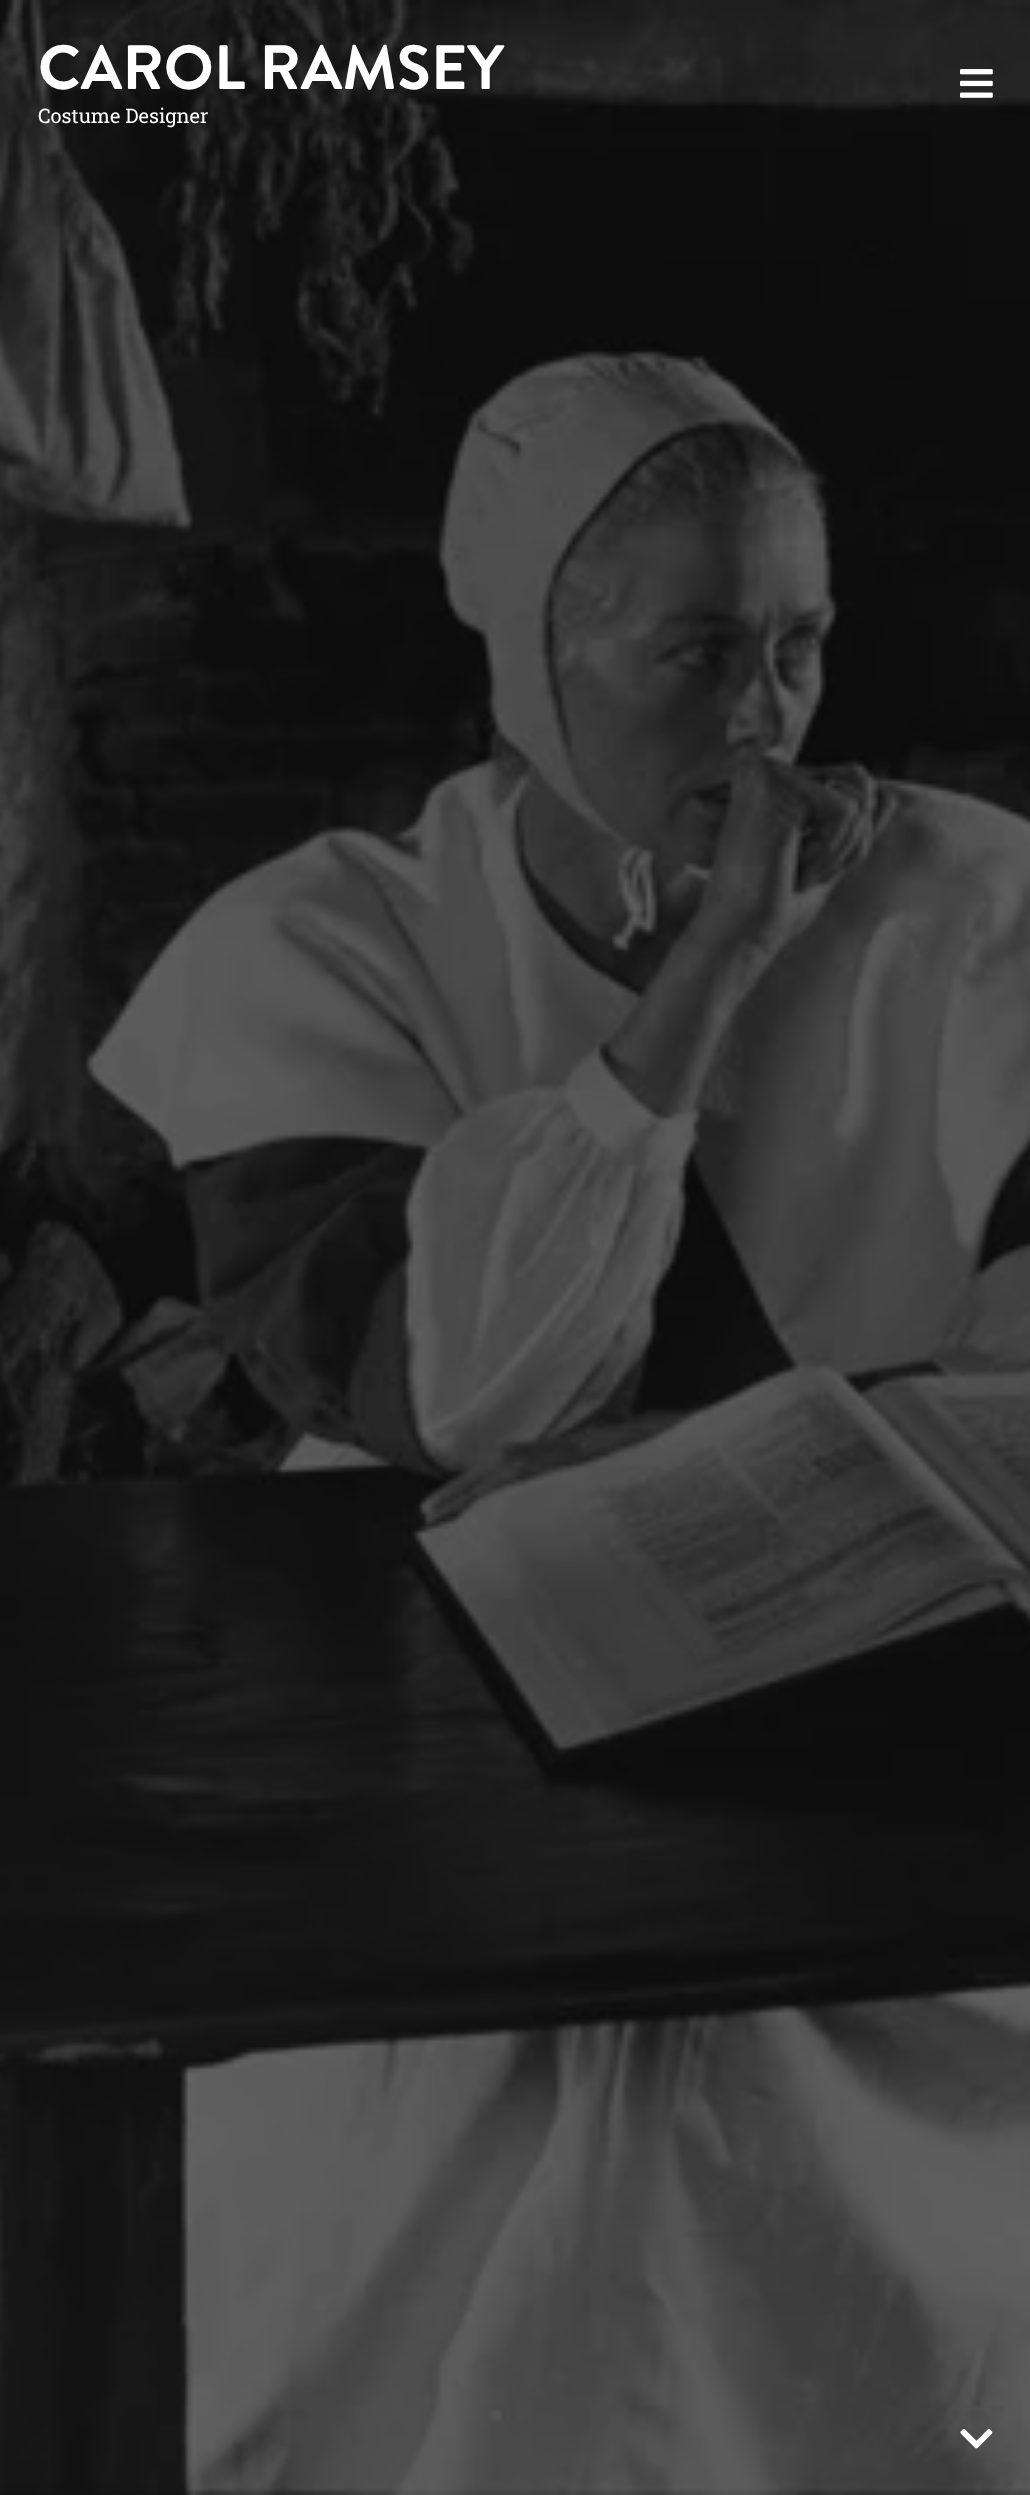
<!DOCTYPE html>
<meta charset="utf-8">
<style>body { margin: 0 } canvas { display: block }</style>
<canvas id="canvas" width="1030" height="2495"></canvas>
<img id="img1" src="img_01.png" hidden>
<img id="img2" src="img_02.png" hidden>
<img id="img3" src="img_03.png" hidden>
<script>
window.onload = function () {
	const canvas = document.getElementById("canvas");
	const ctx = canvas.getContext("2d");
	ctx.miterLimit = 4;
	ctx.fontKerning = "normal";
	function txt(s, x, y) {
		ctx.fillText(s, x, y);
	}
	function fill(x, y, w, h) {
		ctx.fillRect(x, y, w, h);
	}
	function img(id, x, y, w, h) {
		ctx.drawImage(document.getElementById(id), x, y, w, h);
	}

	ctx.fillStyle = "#000000";
	fill(0, 0, 1030, 2495);
	img("img1", 0, 0, 1030, 2495);
	img("img2", 960, 2429, 33, 20);
	img("img3", 960, 69, 33, 29);
	ctx.font = "bold 62.5px Brandon Grotesque";
	ctx.fillStyle = "#FFFFFF";
	txt("CAROL RAMSEY", 38, 89);
	ctx.font = "20px Roboto Slab";
	txt("Costume Designer", 38, 123);
};
</script>
